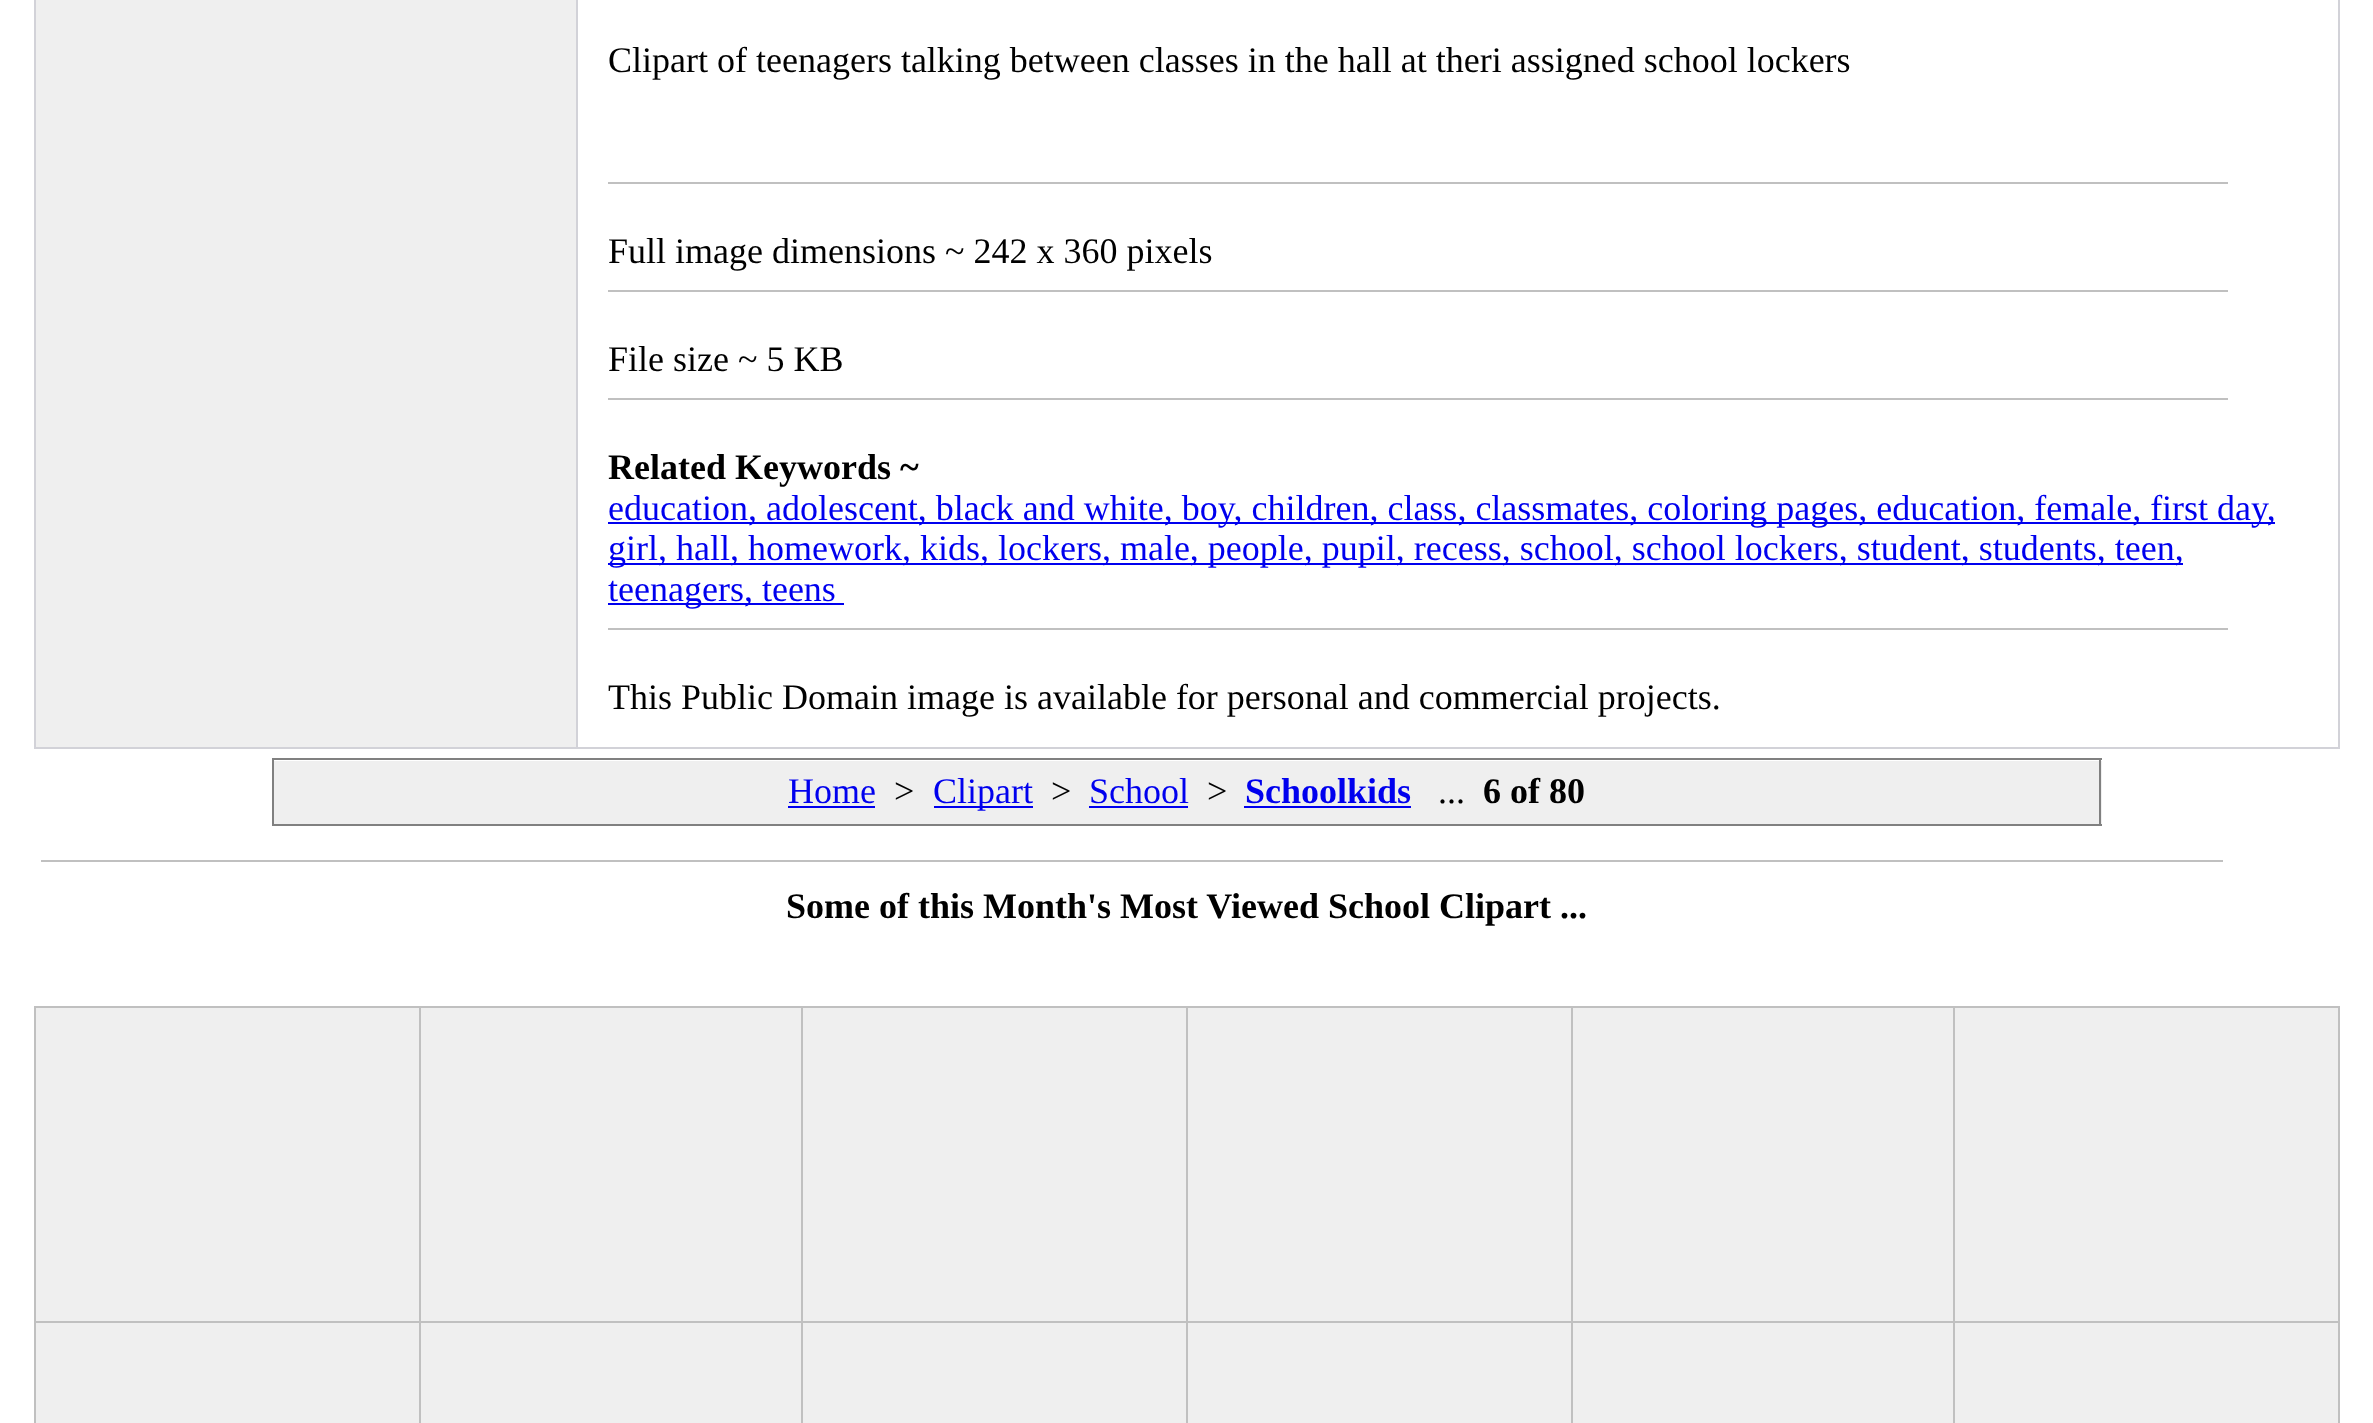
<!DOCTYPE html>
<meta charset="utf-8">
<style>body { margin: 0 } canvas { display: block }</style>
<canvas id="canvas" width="2373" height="1423"></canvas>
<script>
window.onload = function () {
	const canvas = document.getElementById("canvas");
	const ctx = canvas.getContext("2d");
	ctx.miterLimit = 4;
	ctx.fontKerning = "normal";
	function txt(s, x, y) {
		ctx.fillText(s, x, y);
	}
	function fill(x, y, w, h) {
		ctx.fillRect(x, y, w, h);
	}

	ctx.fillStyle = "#FFFFFF";
	fill(0, 0, 2373, 1423);
	ctx.fillStyle = "#D2D2D8";
	fill(2338, 0, 2, 749);
	fill(34, 747, 2306, 2);
	fill(34, 0, 2, 749);
	ctx.fillStyle = "#EFEFEF";
	fill(36, 0, 540, 747);
	ctx.fillStyle = "#D2D2D8";
	fill(576, 0, 2, 749);
	ctx.fillStyle = "#C0C0C0";
	fill(608, 182, 1620, 2);
	fill(608, 290, 1620, 2);
	fill(608, 398, 1620, 2);
	ctx.fillStyle = "#0000EE";
	fill(608, 522, 1667, 2);
	fill(608, 563, 1575, 2);
	fill(608, 603, 236, 2);
	ctx.fillStyle = "#C0C0C0";
	fill(608, 628, 1620, 2);
	ctx.fillStyle = "#808080";
	fill(272, 758, 1830, 2);
	ctx.fillStyle = "#EFEFEF";
	fill(274, 761, 1828, 63);
	ctx.fillStyle = "#808080";
	fill(2099, 758, 2, 68);
	fill(272, 824, 1830, 2);
	fill(272, 758, 2, 68);
	ctx.fillStyle = "#0000EE";
	fill(788, 806, 87, 2);
	fill(934, 806, 99, 2);
	fill(1089, 806, 99, 2);
	fill(1244, 806, 167, 2);
	ctx.fillStyle = "#C0C0C0";
	fill(41, 860, 2182, 2);
	fill(34, 1006, 2306, 2);
	fill(2338, 1006, 2, 417);
	fill(34, 1006, 2, 417);
	ctx.fillStyle = "#EFEFEF";
	fill(36, 1008, 383, 313);
	fill(421, 1008, 380, 313);
	ctx.fillStyle = "#C0C0C0";
	fill(1953, 1321, 387, 2);
	fill(1953, 1321, 2, 102);
	fill(1571, 1321, 384, 2);
	fill(1571, 1321, 2, 102);
	fill(1186, 1321, 387, 2);
	fill(1186, 1321, 2, 102);
	fill(801, 1321, 387, 2);
	fill(801, 1321, 2, 102);
	fill(419, 1321, 384, 2);
	fill(419, 1321, 2, 102);
	fill(34, 1321, 387, 2);
	fill(419, 1006, 2, 317);
	ctx.fillStyle = "#EFEFEF";
	fill(803, 1008, 383, 313);
	ctx.fillStyle = "#C0C0C0";
	fill(801, 1006, 2, 317);
	ctx.fillStyle = "#EFEFEF";
	fill(1188, 1008, 383, 313);
	ctx.fillStyle = "#C0C0C0";
	fill(1186, 1006, 2, 317);
	ctx.fillStyle = "#EFEFEF";
	fill(1573, 1008, 380, 313);
	ctx.fillStyle = "#C0C0C0";
	fill(1571, 1006, 2, 317);
	ctx.fillStyle = "#EFEFEF";
	fill(1955, 1008, 383, 313);
	ctx.fillStyle = "#C0C0C0";
	fill(1953, 1006, 2, 317);
	ctx.fillStyle = "#EFEFEF";
	fill(36, 1323, 383, 100);
	fill(421, 1323, 380, 100);
	fill(803, 1323, 383, 100);
	fill(1188, 1323, 383, 100);
	fill(1573, 1323, 380, 100);
	fill(1955, 1323, 383, 100);
	ctx.font = "36px Liberation Serif";
	ctx.fillStyle = "#000000";
	txt("Clipart of teenagers talking between classes in the hall at theri assigned school lockers", 608, 72);
	txt("Full image dimensions ~ 242 x 360 pixels", 608, 263);
	txt("File size ~ 5 KB", 608, 371);
	ctx.font = "bold 36px Liberation Serif";
	txt("Related Keywords ~", 608, 479);
	ctx.font = "36px Liberation Serif";
	ctx.fillStyle = "#0000EE";
	txt("education, adolescent, black and white, boy, children, class, classmates, coloring pages, education, female, first day,", 608, 520);
	txt("girl, hall, homework, kids, lockers, male, people, pupil, recess, school, school lockers, student, students, teen,", 608, 560);
	txt("teenagers, teens", 608, 601);
	ctx.fillStyle = "#000000";
	txt("This Public Domain image is available for personal and commercial projects.", 608, 709);
	ctx.fillStyle = "#0000EE";
	txt("Home", 788, 803);
	ctx.fillStyle = "#000000";
	txt(">", 894, 803);
	ctx.fillStyle = "#0000EE";
	txt("Clipart", 933, 803);
	ctx.fillStyle = "#000000";
	txt(">", 1051, 803);
	ctx.fillStyle = "#0000EE";
	txt("School", 1089, 803);
	ctx.fillStyle = "#000000";
	txt(">", 1207, 803);
	ctx.font = "bold 36px Liberation Serif";
	ctx.fillStyle = "#0000EE";
	txt("Schoolkids", 1245, 803);
	ctx.fillStyle = "#000000";
	txt("6 of 80", 1483, 803);
	ctx.font = "36px Liberation Serif";
	txt("...", 1438, 803);
	ctx.font = "bold 36px Liberation Serif";
	txt("Some of this Month's Most Viewed School Clipart ...", 786, 918);
};
</script>
